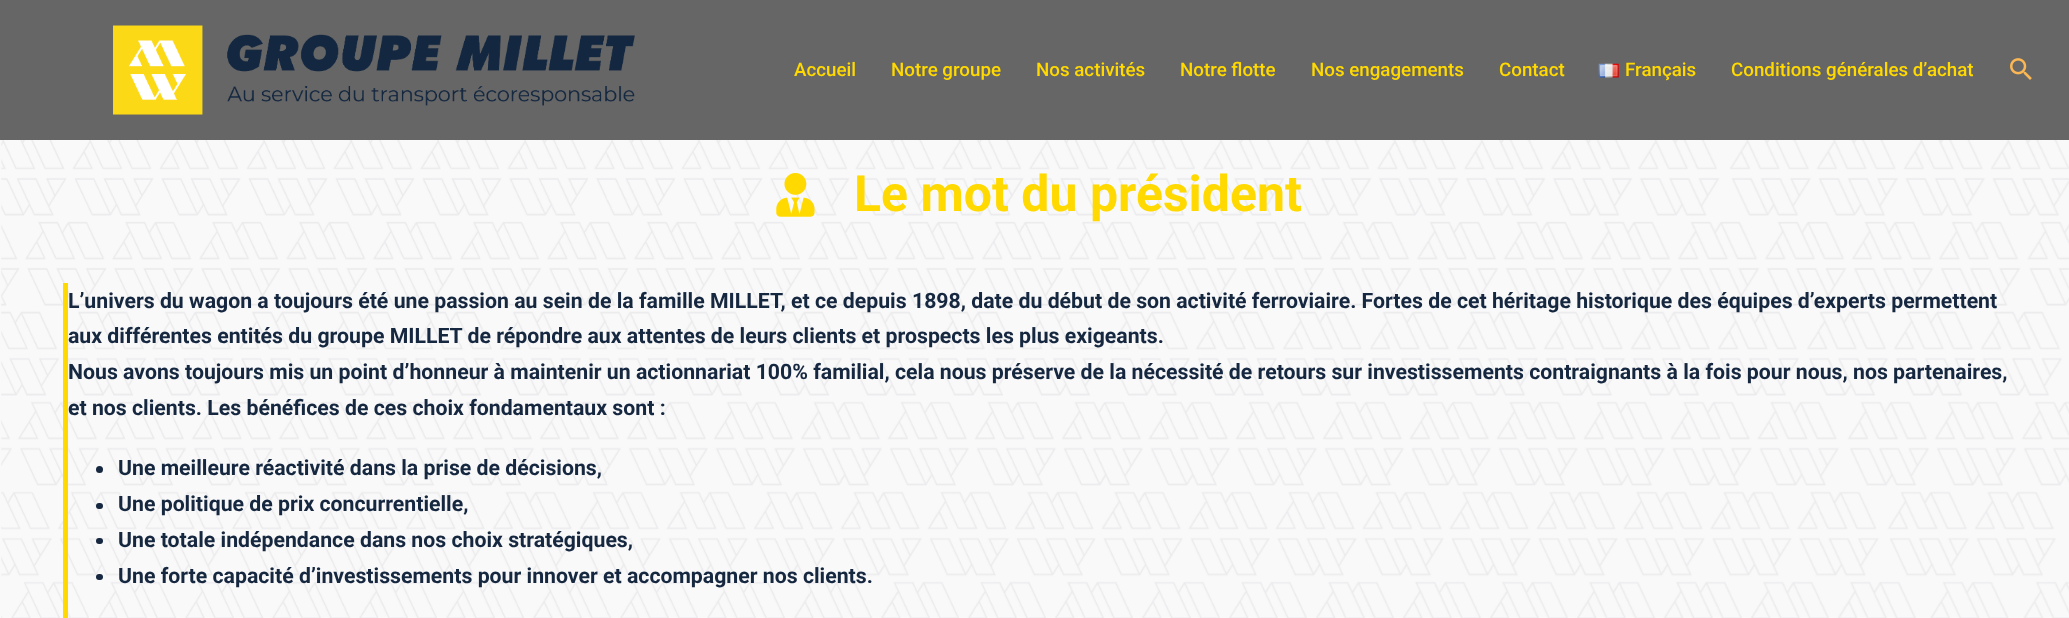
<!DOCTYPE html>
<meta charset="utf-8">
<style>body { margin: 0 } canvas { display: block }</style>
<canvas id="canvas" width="2069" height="618"></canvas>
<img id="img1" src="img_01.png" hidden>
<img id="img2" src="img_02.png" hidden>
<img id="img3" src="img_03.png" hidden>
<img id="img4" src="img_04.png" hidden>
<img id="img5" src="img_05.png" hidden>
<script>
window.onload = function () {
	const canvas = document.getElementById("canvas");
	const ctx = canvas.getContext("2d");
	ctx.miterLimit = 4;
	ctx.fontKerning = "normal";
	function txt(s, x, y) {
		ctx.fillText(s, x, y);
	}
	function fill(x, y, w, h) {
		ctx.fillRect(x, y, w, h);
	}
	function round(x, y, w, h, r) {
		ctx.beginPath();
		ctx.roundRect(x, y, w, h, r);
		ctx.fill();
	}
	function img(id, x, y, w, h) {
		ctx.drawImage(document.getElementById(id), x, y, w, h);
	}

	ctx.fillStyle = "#F9F9F9";
	fill(0, 0, 2069, 618);
	ctx.fillStyle = "#666666";
	fill(0, 0, 2069, 140);
	img("img1", 113, 25, 522, 90);
	img("img2", 1598, 63, 21, 15);
	img("img3", 2010, 58, 22, 22);
	img("img4", 1, 140, 2068, 478);
	img("img5", 776, 173, 39, 44);
	ctx.fillStyle = "#FFD900";
	fill(63, 283, 5, 335);
	ctx.fillStyle = "#162740";
	ctx.beginPath();
	ctx.arc(99.5, 469.5, 3.5, 0, Math.PI * 2);
	ctx.fill();
	round(96, 503, 7, 6, 3);
	round(96, 538, 7, 6, 3);
	round(96, 574, 7, 6, 3);
	ctx.font = "500 18.75px Roboto";
	ctx.fillStyle = "#FFD900";
	txt("Accueil", 794, 76);
	txt("Notre groupe", 891, 76);
	txt("Nos activités", 1036, 76);
	txt("Notre flotte", 1180, 76);
	txt("Nos engagements", 1311, 76);
	txt("Contact", 1499, 76);
	txt("Français", 1625, 76);
	txt("Conditions générales d’achat", 1731, 76);
	ctx.font = "bold 50px Roboto";
	txt("Le mot du président", 854, 211);
	ctx.font = "bold 21.25px Roboto";
	ctx.fillStyle = "#162740";
	txt("L’univers du wagon a toujours été une passion au sein de la famille MILLET, et ce depuis 1898, date du début de son activité ferroviaire. Fortes de cet héritage historique des équipes d’experts permettent", 68, 308);
	txt("aux différentes entités du groupe MILLET de répondre aux attentes de leurs clients et prospects les plus exigeants.", 68, 343);
	txt("Nous avons toujours mis un point d’honneur à maintenir un actionnariat 100% familial, cela nous préserve de la nécessité de retours sur investissements contraignants à la fois pour nous, nos partenaires,", 68, 379);
	txt("et nos clients. Les bénéfices de ces choix fondamentaux sont :", 68, 415);
	txt("Une meilleure réactivité dans la prise de décisions,", 118, 475);
	txt("Une politique de prix concurrentielle,", 118, 511);
	txt("Une totale indépendance dans nos choix stratégiques,", 118, 547);
	txt("Une forte capacité d’investissements pour innover et accompagner nos clients.", 118, 583);
};
</script>
